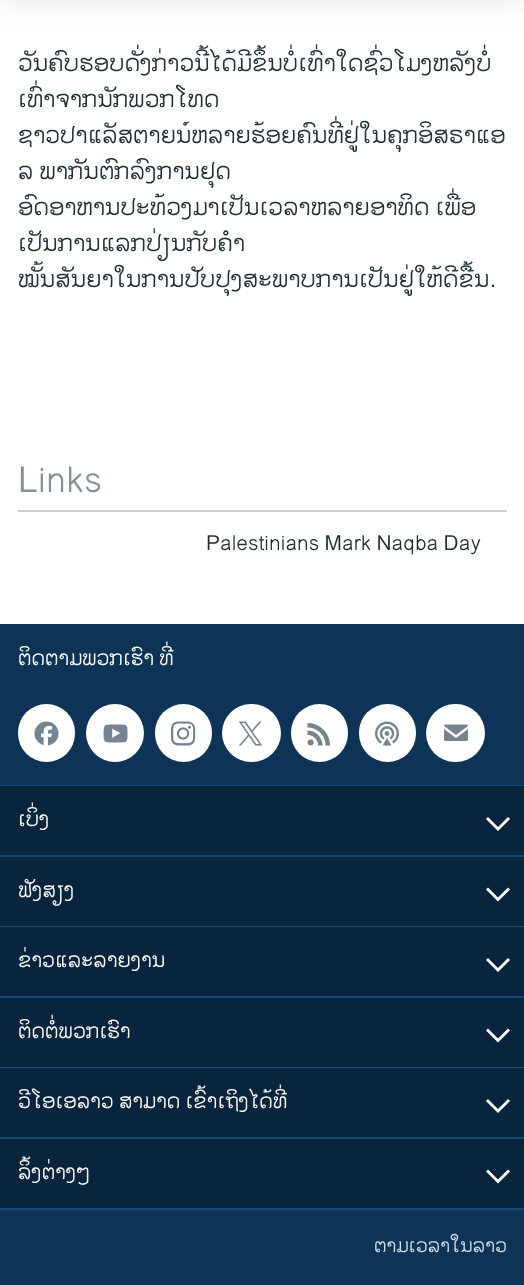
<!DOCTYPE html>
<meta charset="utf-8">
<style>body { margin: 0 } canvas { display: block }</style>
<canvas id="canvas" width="524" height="1285"></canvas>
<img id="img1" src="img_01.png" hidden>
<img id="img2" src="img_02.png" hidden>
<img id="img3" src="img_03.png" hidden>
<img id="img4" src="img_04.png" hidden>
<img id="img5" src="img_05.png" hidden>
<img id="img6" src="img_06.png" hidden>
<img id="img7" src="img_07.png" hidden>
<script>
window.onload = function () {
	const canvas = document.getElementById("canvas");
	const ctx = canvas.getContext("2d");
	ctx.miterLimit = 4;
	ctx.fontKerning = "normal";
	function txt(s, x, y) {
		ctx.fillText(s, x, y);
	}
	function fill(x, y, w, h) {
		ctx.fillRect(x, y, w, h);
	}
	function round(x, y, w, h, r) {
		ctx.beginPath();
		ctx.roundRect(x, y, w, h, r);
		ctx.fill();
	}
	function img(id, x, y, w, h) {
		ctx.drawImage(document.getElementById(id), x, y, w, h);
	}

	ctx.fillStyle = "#FFFFFF";
	fill(0, 0, 524, 1285);
	ctx.fillStyle = "rgba(0, 0, 0, 0.1)";
	ctx.filter = "blur(15px)";
	ctx.beginPath();
	ctx.rect(0, -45, 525, 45);
	ctx.fill();
	ctx.filter = "none";
	ctx.fillStyle = "#CBD1D6";
	fill(18, 510, 489, 2);
	ctx.fillStyle = "#0D3456";
	fill(0, 624, 524, 661);
	ctx.fillStyle = "#134976";
	fill(0, 1208, 524, 2);
	ctx.fillStyle = "#FFFFFF";
	round(18, 704, 57, 58, 28.5);
	img("img1", 34, 721, 25, 25);
	ctx.beginPath();
	ctx.arc(115, 733, 29, 0, Math.PI * 2);
	ctx.fill();
	img("img2", 103, 724, 25, 19);
	round(155, 704, 57, 58, 28.5);
	img("img3", 171, 721, 25, 25);
	round(222, 704, 59, 58, 29);
	img("img4", 238, 721, 25, 25);
	round(291, 704, 57, 58, 28.5);
	img("img5", 307, 723, 23, 23);
	round(359, 704, 57, 58, 28.5);
	img("img6", 375, 721, 24, 25);
	round(426, 704, 59, 58, 29);
	img("img7", 444, 724, 24, 17);
	ctx.fillStyle = "#134976";
	fill(0, 785, 524, 1);
	ctx.fillStyle = "#09243D";
	fill(0, 786, 524, 69);
	ctx.fillStyle = "#FFFFFF";
	ctx.beginPath();
	ctx.moveTo(486, 819);
	ctx.lineTo(498, 831);
	ctx.lineTo(510, 819);
	ctx.lineTo(508, 817);
	ctx.lineTo(498, 827);
	ctx.lineTo(488, 817);
	ctx.closePath();
	ctx.fill();
	ctx.fillStyle = "#134976";
	fill(0, 855, 524, 2);
	ctx.fillStyle = "#09243D";
	fill(0, 857, 524, 69);
	ctx.fillStyle = "#FFFFFF";
	ctx.beginPath();
	ctx.moveTo(486, 889.5);
	ctx.lineTo(498, 901.5);
	ctx.lineTo(510, 889.5);
	ctx.lineTo(508, 887.5);
	ctx.lineTo(498, 897.5);
	ctx.lineTo(488, 887.5);
	ctx.closePath();
	ctx.fill();
	ctx.fillStyle = "#134976";
	fill(0, 926, 524, 1);
	ctx.fillStyle = "#09243D";
	fill(0, 927, 524, 69);
	ctx.fillStyle = "#FFFFFF";
	ctx.beginPath();
	ctx.moveTo(486, 960);
	ctx.lineTo(498, 972);
	ctx.lineTo(510, 960);
	ctx.lineTo(508, 958);
	ctx.lineTo(498, 968);
	ctx.lineTo(488, 958);
	ctx.closePath();
	ctx.fill();
	ctx.fillStyle = "#134976";
	fill(0, 996, 524, 2);
	ctx.fillStyle = "#09243D";
	fill(0, 998, 524, 69);
	ctx.fillStyle = "#FFFFFF";
	ctx.beginPath();
	ctx.moveTo(486, 1030.5);
	ctx.lineTo(498, 1042.5);
	ctx.lineTo(510, 1030.5);
	ctx.lineTo(508, 1028.5);
	ctx.lineTo(498, 1038.5);
	ctx.lineTo(488, 1028.5);
	ctx.closePath();
	ctx.fill();
	ctx.fillStyle = "#134976";
	fill(0, 1067, 524, 1);
	ctx.fillStyle = "#09243D";
	fill(0, 1068, 524, 69);
	ctx.fillStyle = "#FFFFFF";
	ctx.beginPath();
	ctx.moveTo(486, 1101);
	ctx.lineTo(498, 1113);
	ctx.lineTo(510, 1101);
	ctx.lineTo(508, 1099);
	ctx.lineTo(498, 1109);
	ctx.lineTo(488, 1099);
	ctx.closePath();
	ctx.fill();
	ctx.fillStyle = "#134976";
	fill(0, 1137, 524, 2);
	ctx.fillStyle = "#09243D";
	fill(0, 1139, 524, 69);
	ctx.fillStyle = "#FFFFFF";
	ctx.beginPath();
	ctx.moveTo(486, 1171.5);
	ctx.lineTo(498, 1183.5);
	ctx.lineTo(510, 1171.5);
	ctx.lineTo(508, 1169.5);
	ctx.lineTo(498, 1179.5);
	ctx.lineTo(488, 1169.5);
	ctx.closePath();
	ctx.fill();
	ctx.font = "24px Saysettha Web";
	ctx.fillStyle = "#222F3A";
	txt("ວັນຄົບຮອບດັ່ງກ່າວນີ້ໄດ້ມີຂຶ້ນບໍ່ເທົ່າໃດຊົ່ວໂມງຫລັງບໍ່", 18, 71);
	txt("ເທົ່າຈາກນັກພວກໂທດ", 18, 107);
	txt("ຊາວປາແລັສຕາຍນ໌ຫລາຍຮ້ອຍຄົນທີ່ຢູ່ໃນຄຸກອິສຣາແອ", 18, 143);
	txt("ລ ພາກັນຕົກລົງການຢຸດ", 18, 179);
	txt("ອົດອາຫານປະທ້ວງມາເປັນເວລາຫລາຍອາທິດ ເພື່ອ", 18, 215);
	txt("ເປັນການແລກປ່ຽນກັບຄໍາ", 18, 251);
	txt("ໝັ້ນສັນຍາໃນການປັບປຸງສະພາບການເປັນຢູ່ໃຫ້ດີຂື້ນ.", 18, 287);
	ctx.font = "36px Saysettha Web";
	ctx.fillStyle = "#84919D";
	txt("Links", 18, 492);
	ctx.font = "21px Saysettha Web";
	ctx.fillStyle = "#222F3A";
	txt("Palestinians Mark Naqba Day", 206, 550);
	ctx.fillStyle = "#FFFFFF";
	txt("ຕິດຕາມພວກເຮົາ ທີ່", 18, 665);
	txt("ເບິ່ງ", 18, 826);
	txt("ຟັງສຽງ", 18, 897);
	txt("ຂ່າວແລະລາຍງານ", 18, 967);
	txt("ຕິດຕໍ່ພວກເຮົາ", 18, 1038);
	txt("ວີໂອເອລາວ ສາມາດ ເຂົ້າເຖິງໄດ້ທີ່", 18, 1108);
	txt("ລິ້ງຕ່າງໆ", 18, 1179);
	ctx.font = "19.5px Saysettha Web";
	ctx.fillStyle = "#D1E1EE";
	txt("ຕາມເວລາໃນລາວ", 374, 1252);
};
</script>
